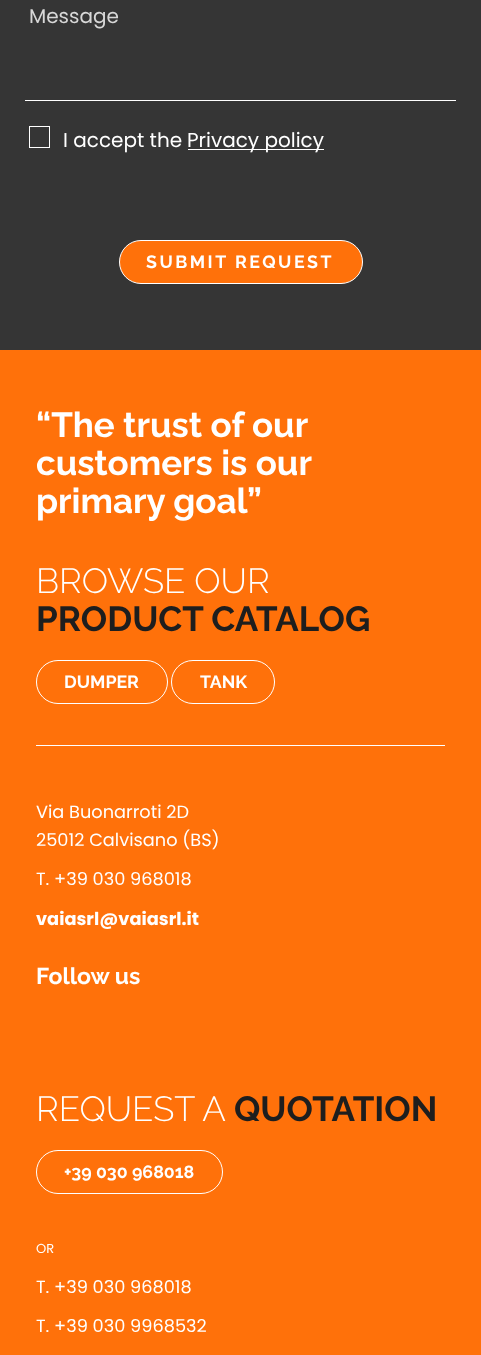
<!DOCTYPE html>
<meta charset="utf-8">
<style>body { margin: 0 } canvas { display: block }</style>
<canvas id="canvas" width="481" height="1355"></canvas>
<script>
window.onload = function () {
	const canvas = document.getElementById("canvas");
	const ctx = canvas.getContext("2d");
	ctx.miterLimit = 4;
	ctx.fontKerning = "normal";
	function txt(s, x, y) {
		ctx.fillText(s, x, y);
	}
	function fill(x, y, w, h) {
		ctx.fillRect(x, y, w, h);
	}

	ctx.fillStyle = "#353535";
	fill(0, 0, 481, 1355);
	ctx.fillStyle = "#FFFFFF";
	fill(25, 100, 431, 1);
	ctx.strokeStyle = "#FFFFFF";
	ctx.strokeRect(29.5, 126.5, 20, 21);
	fill(188, 149, 136, 1);
	ctx.fillStyle = "#FF710A";
	ctx.beginPath();
	ctx.roundRect(119.5, 240.5, 243, 43, 21.5);
	ctx.fill();
	ctx.stroke();
	fill(0, 350, 481, 1005);
	ctx.beginPath();
	ctx.roundRect(36.5, 660.5, 131, 43, 21.5);
	ctx.stroke();
	ctx.beginPath();
	ctx.roundRect(171.5, 660.5, 103, 43, 21.5);
	ctx.stroke();
	ctx.fillStyle = "#FFFFFF";
	fill(36, 745, 409, 1);
	ctx.beginPath();
	ctx.roundRect(36.5, 1150.5, 186, 43, 21.5);
	ctx.stroke();
	ctx.font = "20px Poppins";
	ctx.fillStyle = "#D7D7D7";
	txt("Message", 29, 23);
	ctx.fillStyle = "#FFFFFF";
	txt("I accept the", 63, 147);
	txt("Privacy policy", 187, 147);
	ctx.letterSpacing = "2.5px";
	ctx.font = "bold 17.75px Raleway";
	txt("SUBMIT REQUEST", 146, 268);
	ctx.letterSpacing = "0px";
	ctx.font = "bold 34.9px Raleway";
	txt("“The trust of our", 36, 437);
	txt("customers is our", 36, 475);
	txt("primary goal”", 36, 513);
	ctx.font = "300 34.9px Raleway";
	txt("BROWSE OUR", 36, 593);
	ctx.font = "bold 34.9px Raleway";
	ctx.fillStyle = "#1E1E1E";
	txt("PRODUCT CATALOG", 36, 631);
	ctx.font = "bold 17.75px Raleway";
	ctx.fillStyle = "#FFFFFF";
	txt("DUMPER", 64, 688);
	txt("TANK", 200, 688);
	ctx.font = "17.75px Poppins";
	txt("Via Buonarroti 2D", 36, 818);
	txt("25012 Calvisano (BS)", 36, 846);
	txt("T. +39 030 968018", 36, 885);
	ctx.font = "bold 17.75px Poppins";
	txt("vaiasrl@vaiasrl.it", 36, 925);
	ctx.font = "bold 23px Raleway";
	txt("Follow us", 36, 984);
	ctx.font = "300 34.9px Raleway";
	txt("REQUEST A", 36, 1121);
	ctx.font = "bold 34.9px Raleway";
	ctx.fillStyle = "#1E1E1E";
	txt("QUOTATION", 234, 1121);
	ctx.font = "bold 17.75px Raleway";
	ctx.fillStyle = "#FFFFFF";
	txt("+39 030 968018", 64, 1178);
	ctx.font = "13px Poppins";
	txt("OR", 36, 1253);
	ctx.font = "17.75px Poppins";
	txt("T. +39 030 968018", 36, 1293);
	txt("T. +39 030 9968532", 36, 1332);
};
</script>
